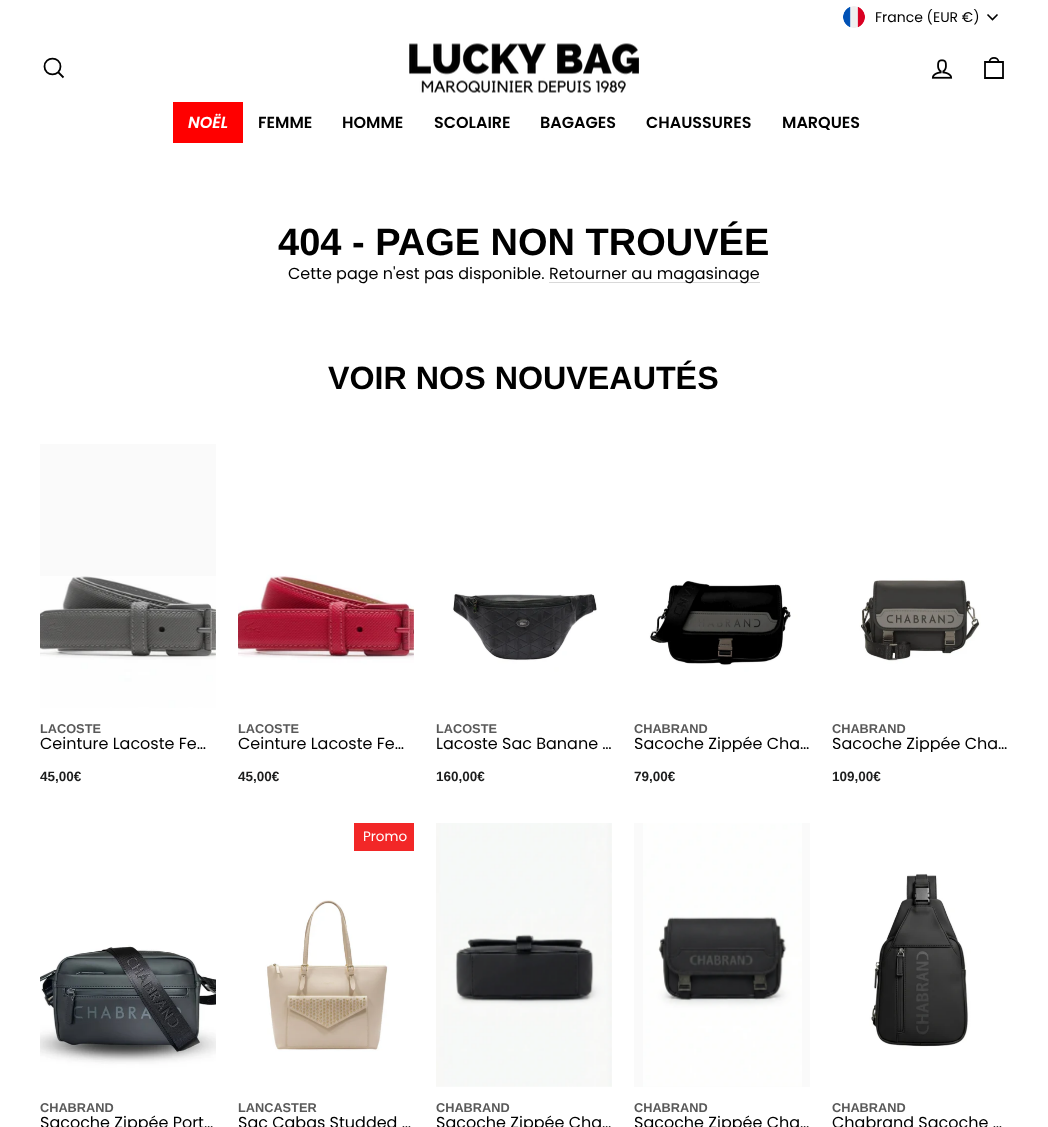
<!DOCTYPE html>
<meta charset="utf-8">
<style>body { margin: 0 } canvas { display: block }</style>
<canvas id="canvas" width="1048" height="1127"></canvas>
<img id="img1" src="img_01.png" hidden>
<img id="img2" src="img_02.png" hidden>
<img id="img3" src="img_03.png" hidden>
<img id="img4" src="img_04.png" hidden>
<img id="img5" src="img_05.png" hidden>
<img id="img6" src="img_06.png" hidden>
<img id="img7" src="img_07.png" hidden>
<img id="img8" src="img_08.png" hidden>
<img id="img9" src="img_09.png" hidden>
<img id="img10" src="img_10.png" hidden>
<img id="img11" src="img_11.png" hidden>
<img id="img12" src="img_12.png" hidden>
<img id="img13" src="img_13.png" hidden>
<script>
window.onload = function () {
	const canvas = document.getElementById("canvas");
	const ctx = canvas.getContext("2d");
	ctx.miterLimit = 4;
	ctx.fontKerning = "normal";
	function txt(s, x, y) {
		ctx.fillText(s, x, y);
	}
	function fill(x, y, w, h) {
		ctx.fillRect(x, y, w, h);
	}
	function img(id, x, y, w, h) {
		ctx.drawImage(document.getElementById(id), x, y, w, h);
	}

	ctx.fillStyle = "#FFFFFF";
	fill(0, 0, 1048, 1127);
	img("img1", 843, 6, 22, 22);
	ctx.beginPath();
	ctx.moveTo(987.5, 14.5);
	ctx.lineTo(992.5, 19.5);
	ctx.lineTo(997.5, 14.5);
	ctx.strokeStyle = "#000000";
	ctx.lineWidth = 1.6;
	ctx.stroke();
	ctx.beginPath();
	ctx.moveTo(60.5, 66.5);
	ctx.bezierCurveTo(60.5, 77, 44.5, 77, 44.5, 66.5);
	ctx.bezierCurveTo(44.5, 56, 60.5, 56, 60.5, 66.5);
	ctx.closePath();
	ctx.moveTo(63.5, 77.5);
	ctx.lineTo(58.5, 72.5);
	ctx.lineWidth = 1.8;
	ctx.stroke();
	img("img2", 409, 43, 230, 50);
	img("img3", 931, 59, 22, 20);
	ctx.beginPath();
	ctx.moveTo(985, 62);
	ctx.lineTo(1003, 62);
	ctx.lineTo(1003, 78);
	ctx.lineTo(985, 78);
	ctx.closePath();
	ctx.moveTo(989.5, 62);
	ctx.bezierCurveTo(989.5, 56.5, 998.5, 56.5, 998.5, 62);
	ctx.stroke();
	ctx.fillStyle = "#FF0000";
	fill(173, 102, 70, 41);
	ctx.fillStyle = "#D9D9D9";
	fill(549, 282, 211, 1);
	ctx.fillStyle = "#FAFAFA";
	fill(40, 444, 176, 264);
	img("img4", 40, 576, 176, 132);
	img("img5", 238, 444, 176, 264);
	img("img6", 436, 444, 176, 264);
	img("img7", 634, 444, 176, 264);
	img("img8", 832, 444, 176, 264);
	img("img9", 40, 823, 176, 264);
	img("img10", 238, 823, 176, 264);
	ctx.fillStyle = "#F22727";
	fill(354, 823, 60, 28);
	img("img11", 436, 823, 176, 264);
	ctx.fillStyle = "#FAFAFA";
	fill(634, 823, 176, 264);
	img("img12", 643, 823, 159, 264);
	img("img13", 832, 823, 176, 264);
	ctx.font = "14px Poppins";
	ctx.fillStyle = "#000000";
	txt("France (EUR €)", 875, 22);
	ctx.font = "italic 600 16px Poppins";
	ctx.fillStyle = "#FFFFFF";
	txt("NOËL", 188, 128);
	ctx.font = "600 16px Poppins";
	ctx.fillStyle = "#000000";
	txt("FEMME", 258, 128);
	txt("HOMME", 342, 128);
	txt("SCOLAIRE", 434, 128);
	txt("BAGAGES", 540, 128);
	txt("CHAUSSURES", 646, 128);
	txt("MARQUES", 782, 128);
	ctx.font = "bold 38px Arimo";
	txt("404 - PAGE NON TROUVÉE", 278, 255);
	ctx.font = "16px Poppins";
	txt("Cette page n'est pas disponible.", 288, 279);
	txt("Retourner au magasinage", 549, 279);
	ctx.font = "bold 32.25px Arimo";
	txt("VOIR NOS NOUVEAUTÉS", 328, 389);
	ctx.font = "bold 12.75px Arimo";
	ctx.fillStyle = "#595959";
	txt("LACOSTE", 40, 733);
	ctx.font = "16px Poppins";
	ctx.fillStyle = "#000000";
	txt("Ceinture Lacoste Fe…", 40, 749);
	ctx.font = "bold 13.5px Arimo";
	ctx.fillStyle = "#1C1D1D";
	txt("45,00€", 40, 781);
	ctx.font = "bold 12.75px Arimo";
	ctx.fillStyle = "#595959";
	txt("LACOSTE", 238, 733);
	ctx.font = "16px Poppins";
	ctx.fillStyle = "#000000";
	txt("Ceinture Lacoste Fe…", 238, 749);
	ctx.font = "bold 13.5px Arimo";
	ctx.fillStyle = "#1C1D1D";
	txt("45,00€", 238, 781);
	ctx.font = "bold 12.75px Arimo";
	ctx.fillStyle = "#595959";
	txt("LACOSTE", 436, 733);
	ctx.font = "16px Poppins";
	ctx.fillStyle = "#000000";
	txt("Lacoste Sac Banane …", 436, 749);
	ctx.font = "bold 13.5px Arimo";
	ctx.fillStyle = "#1C1D1D";
	txt("160,00€", 436, 781);
	ctx.font = "bold 12.75px Arimo";
	ctx.fillStyle = "#595959";
	txt("CHABRAND", 634, 733);
	ctx.save();
	ctx.beginPath();
	ctx.rect(634, 736, 176, 16);
	ctx.clip();
	ctx.font = "16px Poppins";
	ctx.fillStyle = "#000000";
	txt("Sacoche Zippée Cha…", 634, 749);
	ctx.restore();
	ctx.font = "bold 13.5px Arimo";
	ctx.fillStyle = "#1C1D1D";
	txt("79,00€", 634, 781);
	ctx.font = "bold 12.75px Arimo";
	ctx.fillStyle = "#595959";
	txt("CHABRAND", 832, 733);
	ctx.save();
	ctx.beginPath();
	ctx.rect(832, 736, 176, 16);
	ctx.clip();
	ctx.font = "16px Poppins";
	ctx.fillStyle = "#000000";
	txt("Sacoche Zippée Cha…", 832, 749);
	ctx.restore();
	ctx.font = "bold 13.5px Arimo";
	ctx.fillStyle = "#1C1D1D";
	txt("109,00€", 832, 781);
	ctx.font = "bold 12.75px Arimo";
	ctx.fillStyle = "#595959";
	txt("CHABRAND", 40, 1112);
	ctx.font = "16px Poppins";
	ctx.fillStyle = "#000000";
	txt("Sacoche Zippée Port…", 40, 1128);
	ctx.font = "13.5px Poppins";
	ctx.fillStyle = "#FFFFFF";
	txt("Promo", 363, 841);
	ctx.font = "bold 12.75px Arimo";
	ctx.fillStyle = "#595959";
	txt("LANCASTER", 238, 1112);
	ctx.font = "16px Poppins";
	ctx.fillStyle = "#000000";
	txt("Sac Cabas Studded …", 238, 1128);
	ctx.font = "bold 12.75px Arimo";
	ctx.fillStyle = "#595959";
	txt("CHABRAND", 436, 1112);
	ctx.font = "16px Poppins";
	ctx.fillStyle = "#000000";
	txt("Sacoche Zippée Cha…", 436, 1128);
	ctx.font = "bold 12.75px Arimo";
	ctx.fillStyle = "#595959";
	txt("CHABRAND", 634, 1112);
	ctx.font = "16px Poppins";
	ctx.fillStyle = "#000000";
	txt("Sacoche Zippée Cha…", 634, 1128);
	ctx.font = "bold 12.75px Arimo";
	ctx.fillStyle = "#595959";
	txt("CHABRAND", 832, 1112);
	ctx.font = "16px Poppins";
	ctx.fillStyle = "#000000";
	txt("Chabrand Sacoche …", 832, 1128);
};
</script>
